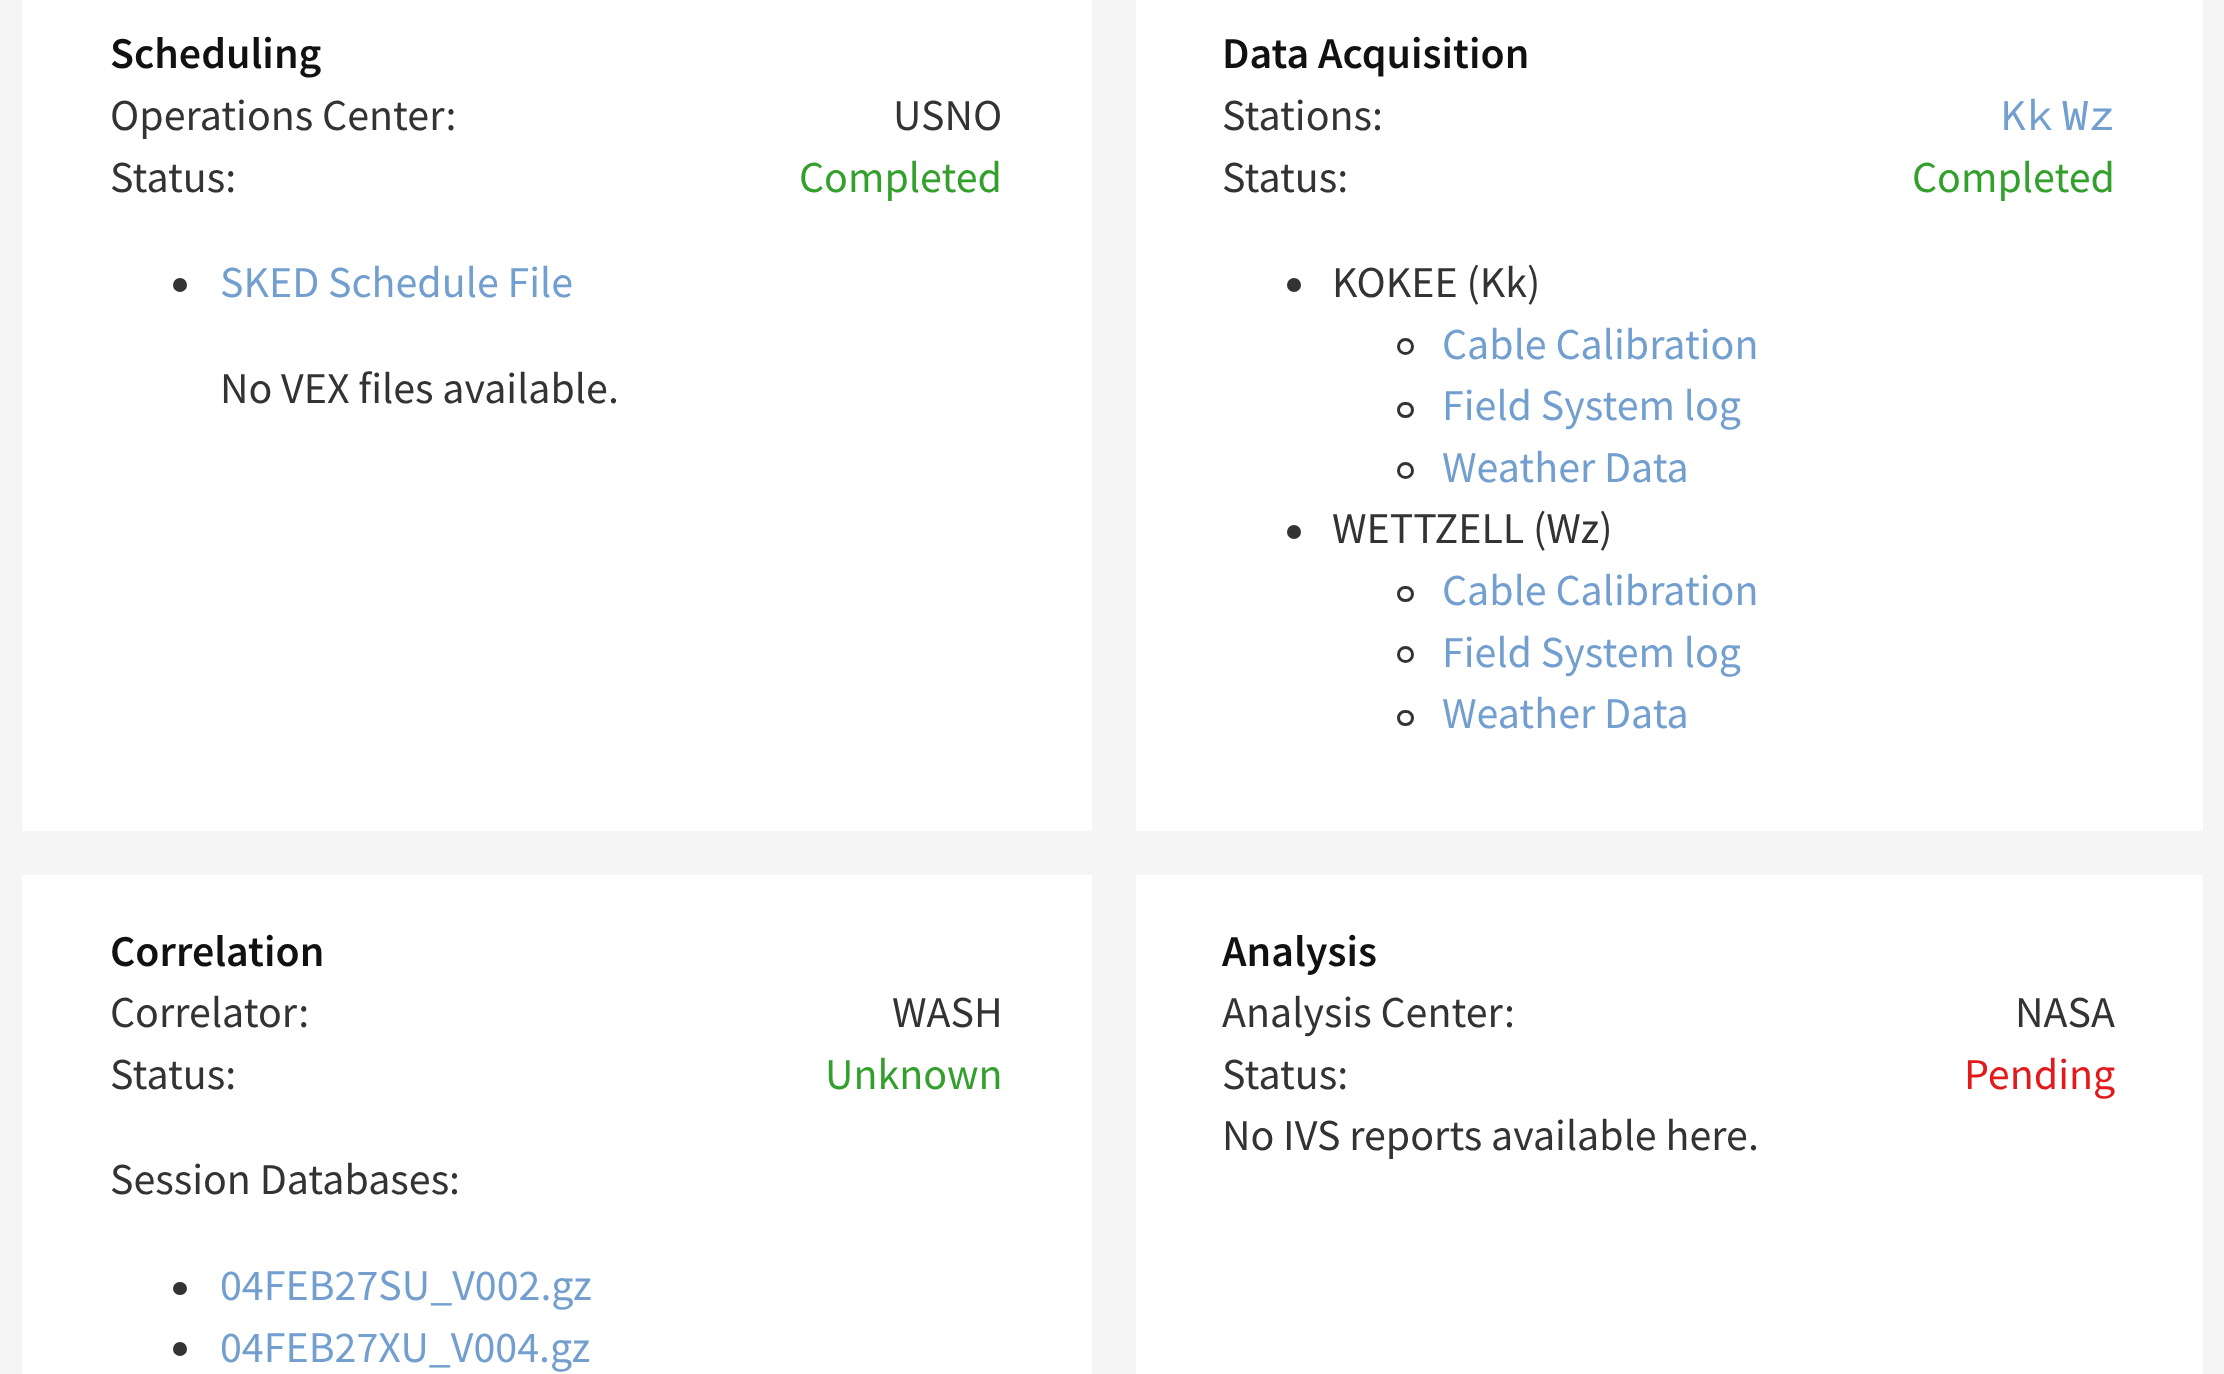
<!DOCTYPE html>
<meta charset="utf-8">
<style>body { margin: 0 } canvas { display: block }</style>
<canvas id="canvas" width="2224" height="1374"></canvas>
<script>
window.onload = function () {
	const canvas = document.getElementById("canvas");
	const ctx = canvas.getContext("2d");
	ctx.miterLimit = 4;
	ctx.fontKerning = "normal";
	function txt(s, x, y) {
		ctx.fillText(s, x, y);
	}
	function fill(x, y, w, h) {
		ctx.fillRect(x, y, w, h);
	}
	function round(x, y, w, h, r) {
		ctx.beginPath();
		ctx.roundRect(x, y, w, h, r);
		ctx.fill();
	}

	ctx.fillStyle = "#F5F5F5";
	fill(0, 0, 2224, 1374);
	ctx.fillStyle = "#FFFFFF";
	fill(22, 0, 1070, 831);
	ctx.fillStyle = "#333333";
	ctx.beginPath();
	ctx.arc(180, 285, 7, 0, Math.PI * 2);
	ctx.fill();
	ctx.fillStyle = "#FFFFFF";
	fill(1136, 0, 1067, 831);
	ctx.fillStyle = "#333333";
	ctx.beginPath();
	ctx.arc(1294, 285, 7, 0, Math.PI * 2);
	ctx.fill();
	ctx.beginPath();
	ctx.arc(1405.5, 346.5, 7, 0, Math.PI * 2);
	ctx.strokeStyle = "#333333";
	ctx.lineWidth = 3;
	ctx.stroke();
	ctx.beginPath();
	ctx.roundRect(1398.5, 403.5, 14, 13, 6.5);
	ctx.stroke();
	ctx.beginPath();
	ctx.arc(1405.5, 470.5, 7, 0, Math.PI * 2);
	ctx.stroke();
	ctx.beginPath();
	ctx.arc(1294, 532, 7, 0, Math.PI * 2);
	ctx.fill();
	ctx.beginPath();
	ctx.roundRect(1398.5, 587.5, 14, 13, 6.5);
	ctx.stroke();
	ctx.beginPath();
	ctx.arc(1405.5, 654.5, 7, 0, Math.PI * 2);
	ctx.stroke();
	ctx.beginPath();
	ctx.roundRect(1398.5, 711.5, 14, 13, 6.5);
	ctx.stroke();
	ctx.fillStyle = "#FFFFFF";
	fill(22, 875, 1070, 499);
	ctx.fillStyle = "#333333";
	round(173, 1282, 14, 13, 6.5);
	ctx.beginPath();
	ctx.arc(180, 1349, 7, 0, Math.PI * 2);
	ctx.fill();
	ctx.fillStyle = "#FFFFFF";
	fill(1136, 875, 1067, 499);
	ctx.font = "600 44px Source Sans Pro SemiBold";
	ctx.fillStyle = "#111111";
	txt("Scheduling", 110, 68);
	ctx.font = "44px Source Sans Pro";
	ctx.fillStyle = "#333333";
	txt("Operations Center:", 110, 130);
	txt("USNO", 893, 130);
	txt("Status:", 110, 192);
	ctx.fillStyle = "#33A02C";
	txt("Completed", 799, 192);
	ctx.fillStyle = "#729FCF";
	txt("SKED Schedule File", 220, 297);
	ctx.fillStyle = "#333333";
	txt("No VEX files available.", 220, 403);
	ctx.font = "600 44px Source Sans Pro SemiBold";
	ctx.fillStyle = "#111111";
	txt("Data Acquisition", 1222, 68);
	ctx.font = "44px Source Sans Pro";
	ctx.fillStyle = "#333333";
	txt("Stations:", 1222, 130);
	ctx.font = "200 44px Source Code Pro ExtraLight";
	ctx.fillStyle = "#729FCF";
	txt("Kk", 2000, 130);
	txt("Wz", 2062, 130);
	ctx.font = "44px Source Sans Pro";
	ctx.fillStyle = "#333333";
	txt("Status:", 1222, 192);
	ctx.fillStyle = "#33A02C";
	txt("Completed", 1912, 192);
	ctx.fillStyle = "#333333";
	txt("KOKEE (Kk)", 1332, 297);
	ctx.fillStyle = "#729FCF";
	txt("Cable Calibration", 1442, 359);
	txt("Field System log", 1442, 420);
	txt("Weather Data", 1442, 482);
	ctx.fillStyle = "#333333";
	txt("WETTZELL (Wz)", 1332, 543);
	ctx.fillStyle = "#729FCF";
	txt("Cable Calibration", 1442, 605);
	txt("Field System log", 1442, 667);
	txt("Weather Data", 1442, 728);
	ctx.font = "600 44px Source Sans Pro SemiBold";
	ctx.fillStyle = "#111111";
	txt("Correlation", 110, 966);
	ctx.font = "44px Source Sans Pro";
	ctx.fillStyle = "#333333";
	txt("Correlator:", 110, 1027);
	txt("WASH", 892, 1027);
	txt("Status:", 110, 1089);
	ctx.fillStyle = "#33A02C";
	txt("Unknown", 825, 1089);
	ctx.fillStyle = "#333333";
	txt("Session Databases:", 110, 1194);
	ctx.fillStyle = "#729FCF";
	txt("04FEB27SU_V002.gz", 220, 1300);
	txt("04FEB27XU_V004.gz", 220, 1362);
	ctx.font = "600 44px Source Sans Pro SemiBold";
	ctx.fillStyle = "#111111";
	txt("Analysis", 1222, 966);
	ctx.font = "44px Source Sans Pro";
	ctx.fillStyle = "#333333";
	txt("Analysis Center:", 1222, 1027);
	txt("NASA", 2015, 1027);
	txt("Status:", 1222, 1089);
	ctx.fillStyle = "#E31A1C";
	txt("Pending", 1964, 1089);
	ctx.fillStyle = "#333333";
	txt("No IVS reports available here.", 1222, 1150);
};
</script>
